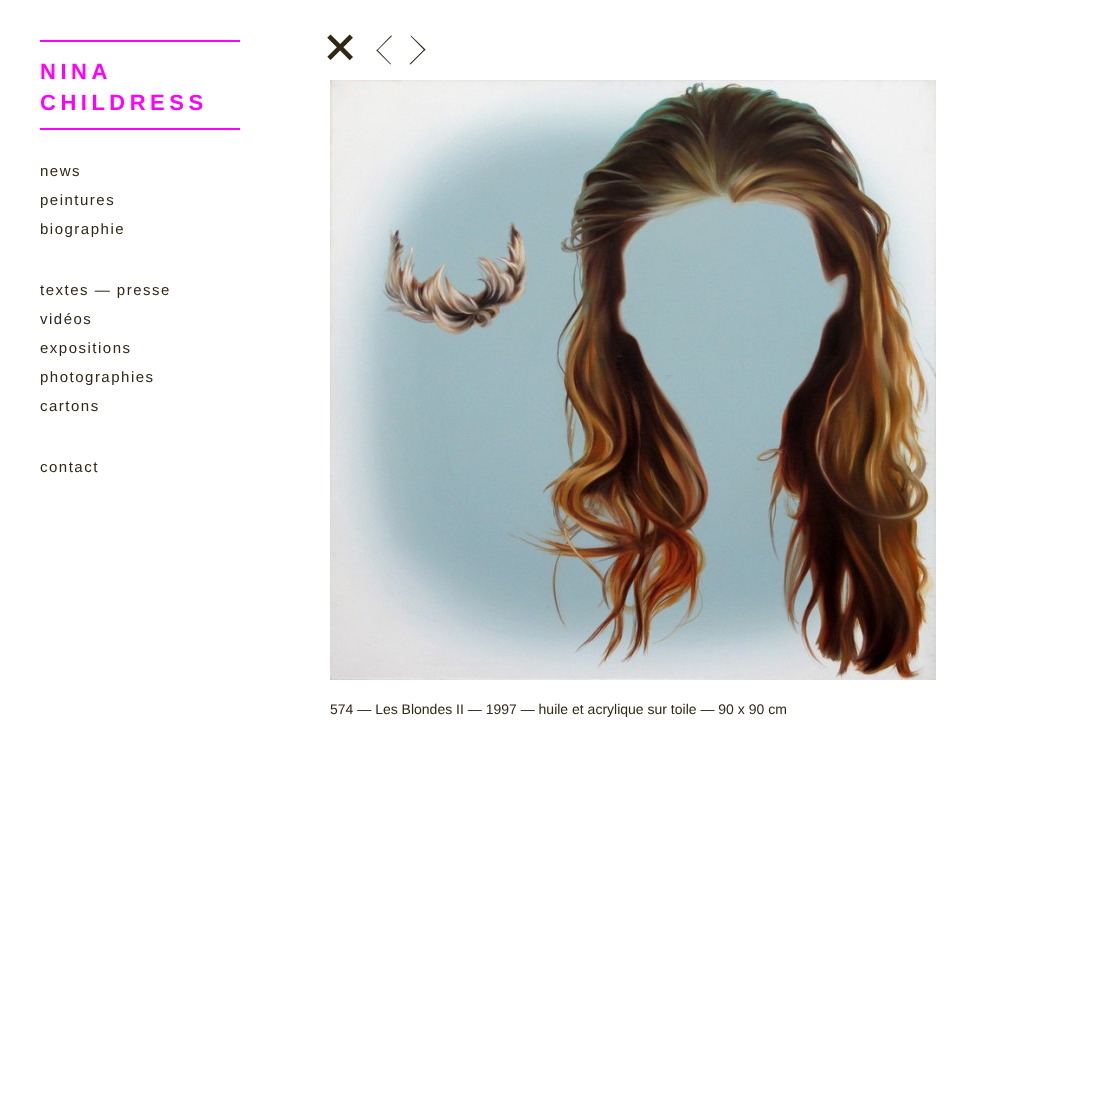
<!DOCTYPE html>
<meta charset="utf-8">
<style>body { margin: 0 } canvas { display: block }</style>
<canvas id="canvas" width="1101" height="1105"></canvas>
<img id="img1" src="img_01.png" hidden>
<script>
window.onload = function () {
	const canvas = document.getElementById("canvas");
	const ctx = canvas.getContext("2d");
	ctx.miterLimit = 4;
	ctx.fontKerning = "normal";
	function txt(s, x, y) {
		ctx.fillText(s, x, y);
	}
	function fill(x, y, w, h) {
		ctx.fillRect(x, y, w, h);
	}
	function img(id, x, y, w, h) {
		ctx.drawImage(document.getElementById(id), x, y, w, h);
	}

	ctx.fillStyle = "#FFFFFF";
	fill(0, 0, 1101, 1105);
	ctx.fillStyle = "#FF00FF";
	fill(40, 40, 200, 2);
	fill(40, 128, 200, 2);
	img("img1", 330, 80, 606, 600);
	ctx.fillStyle = "#302814";
	ctx.beginPath();
	ctx.moveTo(376.5, 50.5);
	ctx.lineTo(391, 35.5);
	ctx.lineTo(392, 36);
	ctx.lineTo(377, 51);
	ctx.closePath();
	ctx.fill();
	ctx.beginPath();
	ctx.moveTo(376.5, 50.5);
	ctx.lineTo(377, 49.5);
	ctx.lineTo(391, 64);
	ctx.lineTo(390.5, 64.5);
	ctx.closePath();
	ctx.moveTo(410.5, 36);
	ctx.lineTo(411, 35.5);
	ctx.lineTo(425.5, 49.5);
	ctx.lineTo(424.5, 50.5);
	ctx.closePath();
	ctx.fill();
	ctx.beginPath();
	ctx.moveTo(409.5, 64);
	ctx.lineTo(424.5, 49);
	ctx.lineTo(425.5, 49.5);
	ctx.lineTo(410.5, 64.5);
	ctx.closePath();
	ctx.fill();
	ctx.letterSpacing = "4.5px";
	ctx.font = "bold 22px Liberation Sans";
	ctx.fillStyle = "#FF00FF";
	txt("NINA", 40, 79);
	txt("CHILDRESS", 40, 110);
	ctx.letterSpacing = "1.5px";
	ctx.font = "15px Liberation Sans";
	ctx.fillStyle = "#302814";
	txt("news", 40, 176);
	txt("peintures", 40, 205);
	txt("biographie", 40, 234);
	txt("textes — presse", 40, 295);
	txt("vidéos", 40, 324);
	txt("expositions", 40, 353);
	txt("photographies", 40, 382);
	txt("cartons", 40, 411);
	txt("contact", 40, 472);
	ctx.letterSpacing = "0px";
	ctx.font = "65px Liberation Sans";
	ctx.save();
	ctx.translate(342, 76);
	ctx.rotate(-45 * Math.PI / 180);
	ctx.fillText("+", 0, 0);
	ctx.restore();
	ctx.font = "14px Liberation Sans";
	txt("574 — Les Blondes II — 1997 — huile et acrylique sur toile — 90 x 90 cm", 330, 714);
};
</script>
